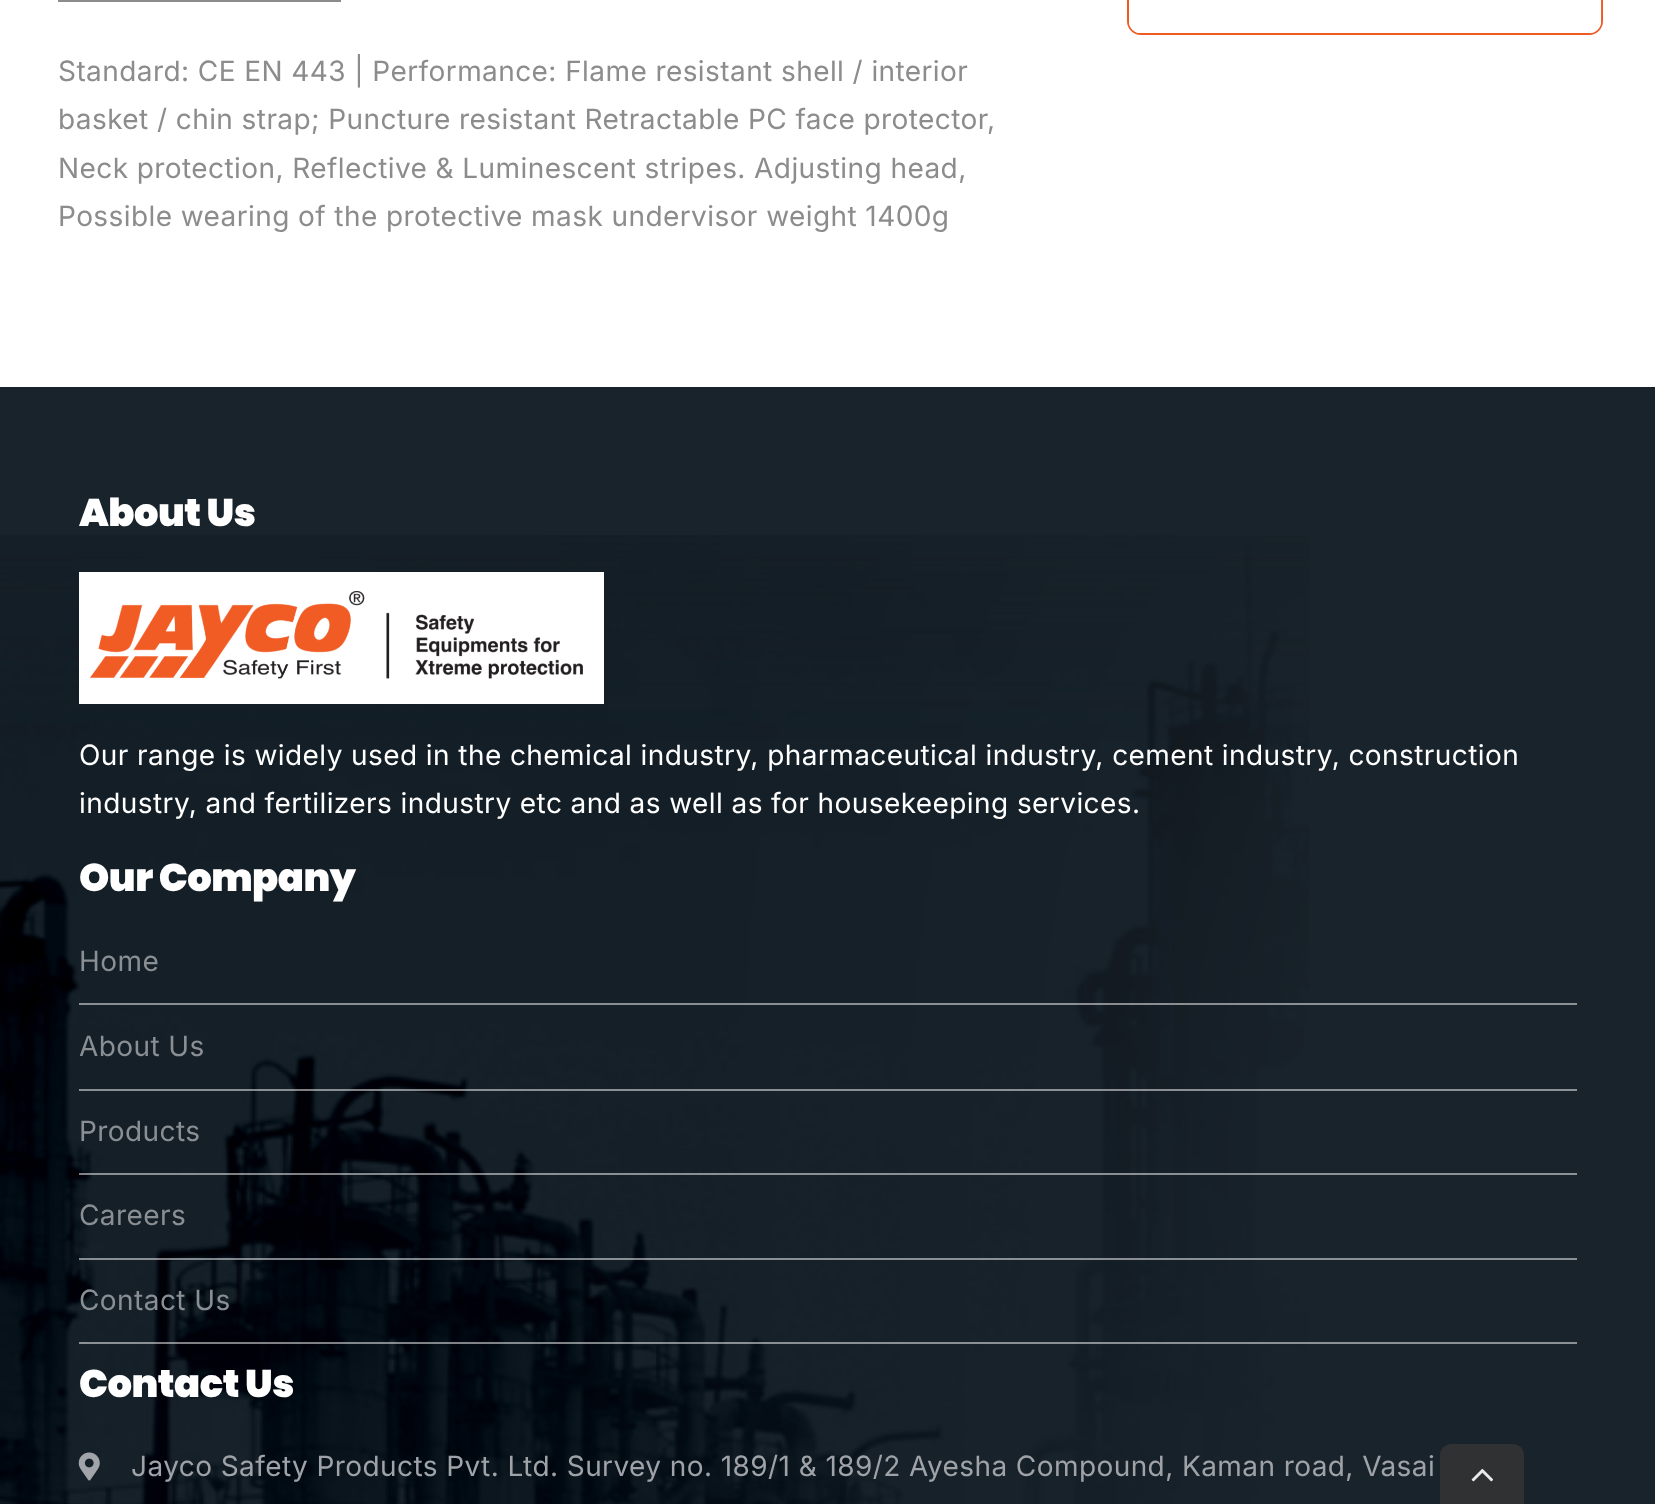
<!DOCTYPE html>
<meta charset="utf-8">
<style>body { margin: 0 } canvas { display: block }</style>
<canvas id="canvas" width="1655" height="1504"></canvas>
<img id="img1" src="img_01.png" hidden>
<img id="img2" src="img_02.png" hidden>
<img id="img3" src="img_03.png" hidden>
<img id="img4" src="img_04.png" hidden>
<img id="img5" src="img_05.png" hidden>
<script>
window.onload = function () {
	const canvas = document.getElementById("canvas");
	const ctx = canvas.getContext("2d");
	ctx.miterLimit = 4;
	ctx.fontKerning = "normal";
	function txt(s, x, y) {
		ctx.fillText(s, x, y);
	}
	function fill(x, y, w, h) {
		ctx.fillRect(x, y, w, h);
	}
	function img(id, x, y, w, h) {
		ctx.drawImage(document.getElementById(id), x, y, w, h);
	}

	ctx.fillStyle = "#FFFFFF";
	fill(0, 0, 1655, 1504);
	ctx.beginPath();
	ctx.roundRect(1128, -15, 474, 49, 13);
	ctx.strokeStyle = "#F15A23";
	ctx.lineWidth = 2;
	ctx.stroke();
	img("img1", 1129, 0, 473, 33);
	ctx.fillStyle = "#8C8C8C";
	fill(58, 0, 283, 2);
	ctx.fillStyle = "#19232B";
	fill(0, 387, 1655, 1117);
	img("img2", 0, 535, 1309, 969);
	ctx.fillStyle = "#FFFFFF";
	fill(79, 572, 525, 132);
	img("img3", 90, 591, 493, 88);
	ctx.fillStyle = "rgba(255, 255, 255, 0.5)";
	fill(79, 1003, 1498, 2);
	fill(79, 1089, 1498, 2);
	fill(79, 1173, 1498, 2);
	fill(79, 1258, 1498, 2);
	fill(79, 1342, 1498, 2);
	img("img4", 78, 1452, 22, 29);
	ctx.fillStyle = "#303132";
	ctx.beginPath();
	ctx.moveTo(1451, 1444);
	ctx.lineTo(1513, 1444);
	ctx.bezierCurveTo(1519, 1444, 1524, 1449, 1524, 1455);
	ctx.lineTo(1524, 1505);
	ctx.lineTo(1440, 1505);
	ctx.lineTo(1440, 1455);
	ctx.bezierCurveTo(1440, 1449, 1445, 1444, 1451, 1444);
	ctx.closePath();
	ctx.fill();
	img("img5", 1471, 1468, 22, 14);
	ctx.letterSpacing = "0.42px";
	ctx.font = "28px Inter";
	ctx.fillStyle = "#8C8C8C";
	txt("Standard: CE EN 443 | Performance: Flame resistant shell / interior", 58, 81);
	txt("basket / chin strap; Puncture resistant Retractable PC face protector,", 58, 129);
	txt("Neck protection, Reflective & Luminescent stripes. Adjusting head,", 58, 178);
	txt("Possible wearing of the protective mask undervisor weight 1400g", 58, 226);
	ctx.letterSpacing = "-0.5px";
	ctx.font = "900 38.5px Poppins";
	ctx.fillStyle = "#FFFFFF";
	txt("About Us", 79, 526);
	ctx.letterSpacing = "0.42px";
	ctx.font = "28px Inter";
	txt("Our range is widely used in the chemical industry, pharmaceutical industry, cement industry, construction", 79, 765);
	txt("industry, and fertilizers industry etc and as well as for housekeeping services.", 79, 813);
	ctx.letterSpacing = "-0.5px";
	ctx.font = "900 38.5px Poppins";
	txt("Our Company", 79, 891);
	ctx.letterSpacing = "0.42px";
	ctx.font = "28px Inter";
	ctx.fillStyle = "#8A8F93";
	txt("Home", 79, 971);
	txt("About Us", 79, 1056);
	txt("Products", 79, 1141);
	txt("Careers", 79, 1225);
	txt("Contact Us", 79, 1310);
	ctx.letterSpacing = "-0.5px";
	ctx.font = "900 38.5px Poppins";
	ctx.fillStyle = "#FFFFFF";
	txt("Contact Us", 79, 1397);
	ctx.letterSpacing = "0.42px";
	ctx.font = "28px Inter";
	ctx.fillStyle = "#9FA3A7";
	txt("Jayco Safety Products Pvt. Ltd. Survey no. 189/1 & 189/2 Ayesha Compound, Kaman road, Vasai", 131, 1476);
};
</script>
